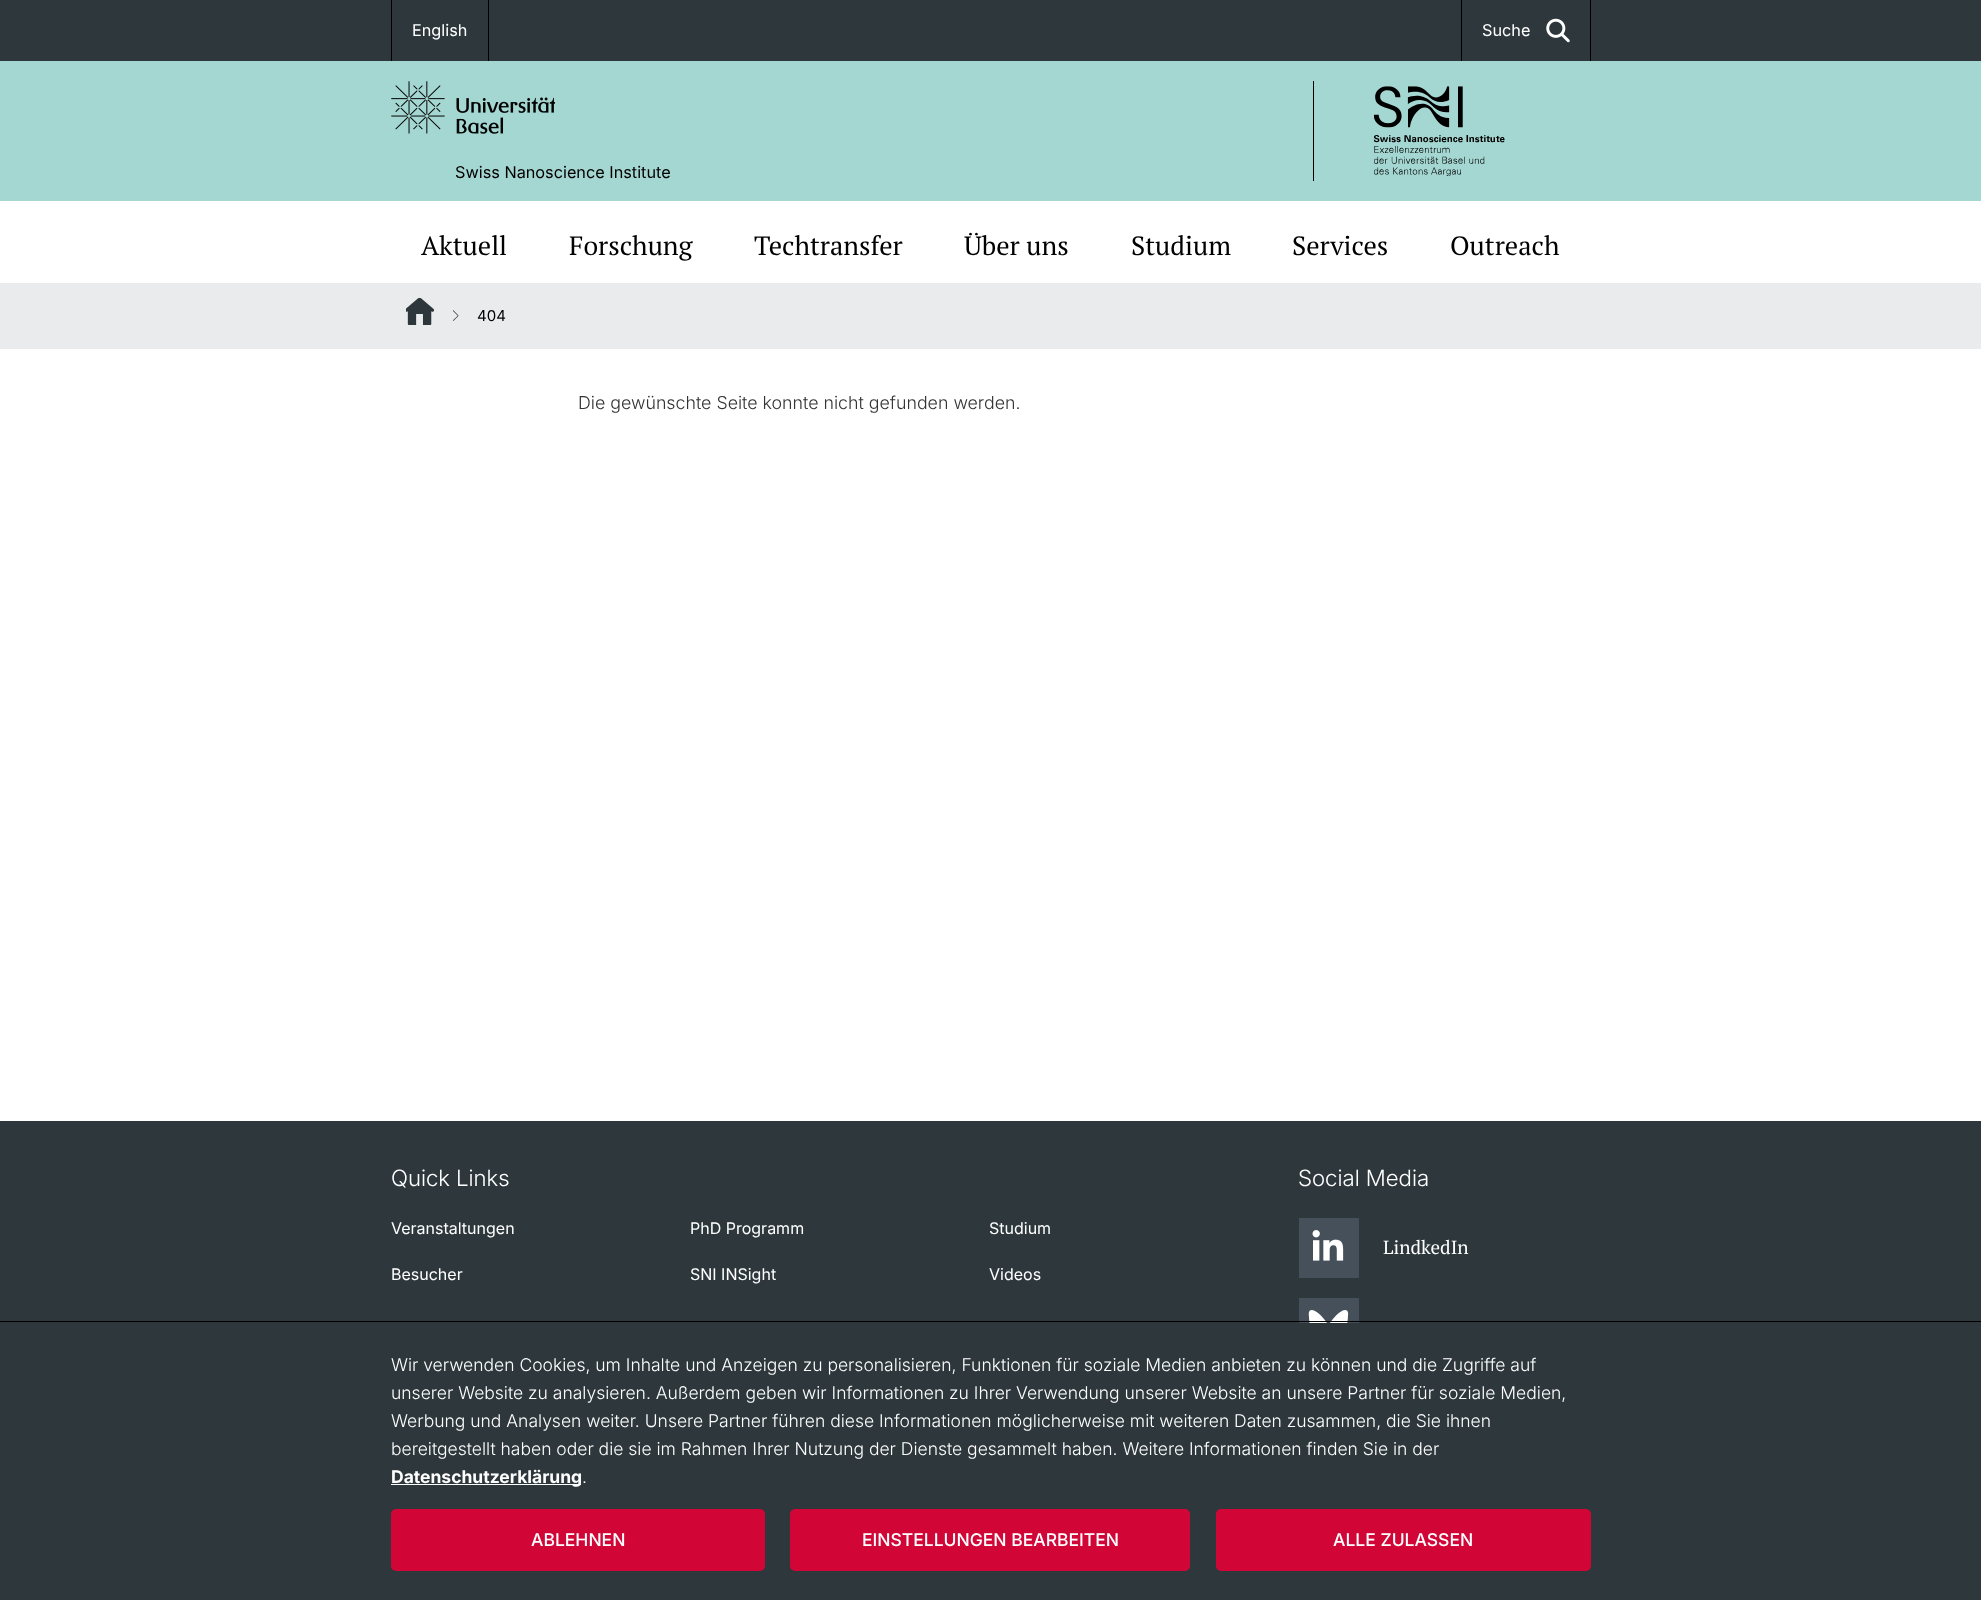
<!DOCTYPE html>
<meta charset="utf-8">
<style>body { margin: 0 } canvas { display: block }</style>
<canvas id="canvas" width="1981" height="1600"></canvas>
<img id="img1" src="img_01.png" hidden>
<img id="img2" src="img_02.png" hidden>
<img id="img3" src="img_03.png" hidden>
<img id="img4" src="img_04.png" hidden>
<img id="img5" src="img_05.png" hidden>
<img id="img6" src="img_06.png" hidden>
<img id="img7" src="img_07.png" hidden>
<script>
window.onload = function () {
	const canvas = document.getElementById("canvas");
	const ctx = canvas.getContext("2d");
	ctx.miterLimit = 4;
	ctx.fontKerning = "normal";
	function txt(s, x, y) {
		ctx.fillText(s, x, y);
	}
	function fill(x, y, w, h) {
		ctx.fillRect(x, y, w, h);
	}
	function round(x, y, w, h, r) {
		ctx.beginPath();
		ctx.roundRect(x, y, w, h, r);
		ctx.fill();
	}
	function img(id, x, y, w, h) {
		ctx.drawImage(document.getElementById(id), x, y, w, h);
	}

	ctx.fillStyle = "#FFFFFF";
	fill(0, 0, 1981, 1600);
	ctx.fillStyle = "#2D373C";
	fill(0, 0, 1981, 61);
	ctx.fillStyle = "#000000";
	fill(488, 0, 1, 61);
	fill(391, 0, 1, 61);
	fill(1590, 0, 1, 61);
	fill(1461, 0, 1, 61);
	img("img1", 1546, 18, 24, 25);
	ctx.fillStyle = "#A5D7D2";
	fill(0, 61, 1981, 140);
	img("img2", 391, 81, 164, 53);
	ctx.fillStyle = "#000000";
	fill(1313, 81, 1, 100);
	img("img3", 1374, 86, 131, 90);
	ctx.fillStyle = "#EAEBEC";
	fill(0, 283, 1981, 66);
	img("img4", 406, 298, 29, 27);
	img("img5", 453, 310, 6, 11);
	ctx.fillStyle = "#2D373C";
	fill(0, 1121, 1981, 479);
	ctx.fillStyle = "#46505A";
	fill(1299, 1218, 60, 60);
	img("img6", 1312, 1230, 32, 31);
	fill(1299, 1298, 60, 25);
	img("img7", 1308, 1310, 41, 13);
	ctx.fillStyle = "#000000";
	fill(0, 1321, 1981, 1);
	ctx.fillStyle = "#FFFFFF";
	fill(391, 1484, 190, 1);
	ctx.fillStyle = "#D20537";
	round(391, 1509, 374, 62, 5);
	round(1216, 1509, 375, 62, 5);
	round(790, 1509, 400, 62, 5);
	ctx.font = "16.25px Inter";
	ctx.fillStyle = "#FFFFFF";
	txt("English", 412, 36);
	txt("Suche", 1482, 36);
	ctx.fillStyle = "#000000";
	txt("Swiss Nanoscience Institute", 455, 178);
	ctx.font = "26.5px PT Serif";
	txt("Aktuell", 421, 255);
	txt("Forschung", 569, 255);
	txt("Techtransfer", 754, 255);
	txt("Über uns", 964, 255);
	txt("Studium", 1131, 255);
	txt("Services", 1292, 255);
	txt("Outreach", 1450, 255);
	ctx.font = "15px Inter";
	txt("404", 477, 321);
	ctx.font = "300 17.8px Inter";
	ctx.fillStyle = "#333333";
	txt("Die gewünschte Seite konnte nicht gefunden werden.", 578, 409);
	ctx.font = "300 22.5px 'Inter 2'";
	ctx.fillStyle = "#FFFFFF";
	txt("Quick Links", 391, 1186);
	ctx.font = "16px Inter";
	txt("Veranstaltungen", 391, 1234);
	txt("Besucher", 391, 1280);
	txt("PhD Programm", 690, 1234);
	txt("SNI INSight", 690, 1280);
	txt("Studium", 989, 1234);
	txt("Videos", 989, 1280);
	ctx.font = "300 22.5px 'Inter 2'";
	txt("Social Media", 1298, 1186);
	ctx.font = "19px PT Serif";
	txt("LindkedIn", 1383, 1254);
	ctx.font = "300 17.5px Inter";
	txt("Wir verwenden Cookies, um Inhalte und Anzeigen zu personalisieren, Funktionen für soziale Medien anbieten zu können und die Zugriffe auf", 391, 1371);
	txt("unserer Website zu analysieren. Außerdem geben wir Informationen zu Ihrer Verwendung unserer Website an unsere Partner für soziale Medien,", 391, 1399);
	txt("Werbung und Analysen weiter. Unsere Partner führen diese Informationen möglicherweise mit weiteren Daten zusammen, die Sie ihnen", 391, 1427);
	txt("bereitgestellt haben oder die sie im Rahmen Ihrer Nutzung der Dienste gesammelt haben. Weitere Informationen finden Sie in der", 391, 1455);
	ctx.font = "bold 17.5px Inter";
	txt("Datenschutzerklärung", 391, 1483);
	ctx.font = "300 17.5px Inter";
	txt(".", 582, 1483);
	ctx.font = "500 17.5px Inter";
	txt("ABLEHNEN", 531, 1546);
	txt("ALLE ZULASSEN", 1333, 1546);
	txt("EINSTELLUNGEN BEARBEITEN", 862, 1546);
};
</script>
